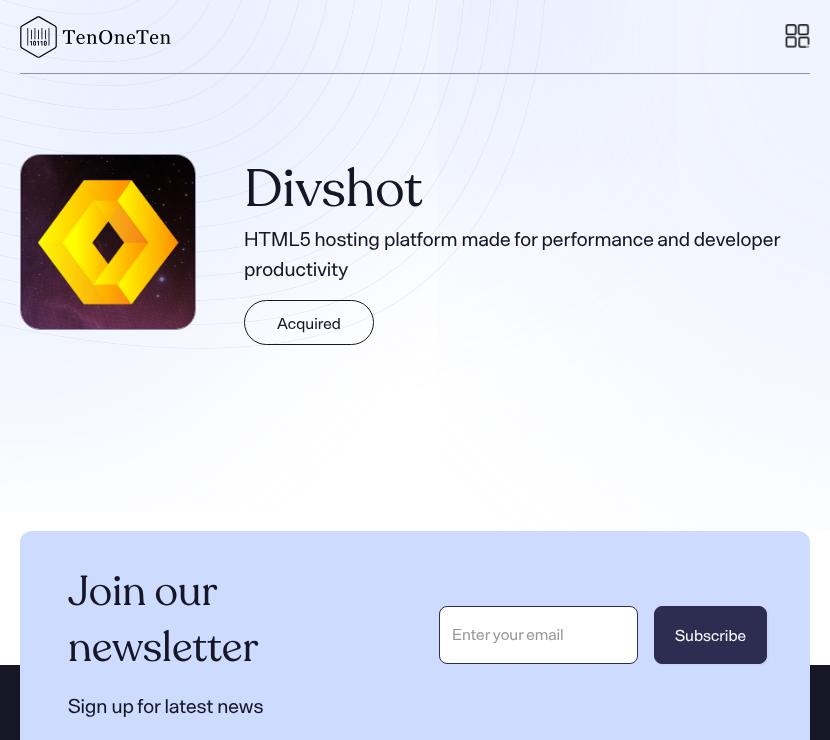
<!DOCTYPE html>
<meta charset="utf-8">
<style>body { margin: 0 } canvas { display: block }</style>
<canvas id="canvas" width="830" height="740"></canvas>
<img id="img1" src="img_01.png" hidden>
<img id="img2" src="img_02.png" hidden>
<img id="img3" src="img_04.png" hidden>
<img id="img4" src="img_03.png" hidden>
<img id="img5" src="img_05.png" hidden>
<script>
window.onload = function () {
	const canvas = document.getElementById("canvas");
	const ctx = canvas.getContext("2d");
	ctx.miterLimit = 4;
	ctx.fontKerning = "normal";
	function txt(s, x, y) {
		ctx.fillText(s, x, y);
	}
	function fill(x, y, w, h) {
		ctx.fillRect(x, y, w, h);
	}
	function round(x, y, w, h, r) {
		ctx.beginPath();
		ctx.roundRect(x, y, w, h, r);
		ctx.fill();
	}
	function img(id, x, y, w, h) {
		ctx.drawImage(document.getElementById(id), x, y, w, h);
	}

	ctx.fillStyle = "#FFFFFF";
	fill(0, 0, 830, 740);
	img("img1", 0, 0, 677, 512);
	img("img2", 20, 16, 151, 42);
	img("img3", 438, 0, 392, 531);
	img("img4", 785, 24, 25, 24);
	ctx.fillStyle = "#928DAB";
	fill(20, 73, 790, 1);
	ctx.beginPath();
	ctx.roundRect(20.5, 154.5, 175, 175, 19.5);
	ctx.strokeStyle = "#928DAB";
	ctx.stroke();
	img("img5", 21, 155, 174, 174);
	ctx.beginPath();
	ctx.roundRect(244.5, 300.5, 129, 44, 22);
	ctx.strokeStyle = "#171627";
	ctx.stroke();
	ctx.fillStyle = "#171627";
	fill(0, 665, 830, 75);
	ctx.fillStyle = "#CDDBFF";
	round(20, 531, 790, 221, 12);
	ctx.fillStyle = "#FFFFFF";
	ctx.beginPath();
	ctx.roundRect(439.5, 606.5, 198, 57, 7.5);
	ctx.fill();
	ctx.strokeStyle = "#2D2C51";
	ctx.stroke();
	ctx.fillStyle = "rgba(16, 24, 40, 0.05)";
	ctx.filter = "blur(1px)";
	ctx.beginPath();
	ctx.roundRect(655, 607, 113, 58, 8);
	ctx.fill();
	ctx.filter = "none";
	ctx.fillStyle = "#2D2C51";
	ctx.beginPath();
	ctx.roundRect(654.5, 606.5, 112, 57, 7.5);
	ctx.fill();
	ctx.stroke();
	ctx.font = "52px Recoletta";
	ctx.fillStyle = "#171627";
	txt("Divshot", 244, 206);
	ctx.font = "20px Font";
	txt("HTML5 hosting platform made for performance and developer", 244, 246);
	txt("productivity", 244, 276);
	ctx.font = "16px Font";
	txt("Acquired", 277, 329);
	ctx.wordSpacing = "-1px";
	ctx.font = "41.5px Recoletta";
	txt("Join our", 68, 605);
	ctx.wordSpacing = "0px";
	txt("newsletter", 68, 661);
	ctx.font = "20px Font";
	txt("Sign up for latest news", 68, 713);
	ctx.font = "16px Font";
	ctx.fillStyle = "#999999";
	txt("Enter your email", 452, 640);
	ctx.fillStyle = "#F4F4F9";
	txt("Subscribe", 675, 641);
};
</script>
